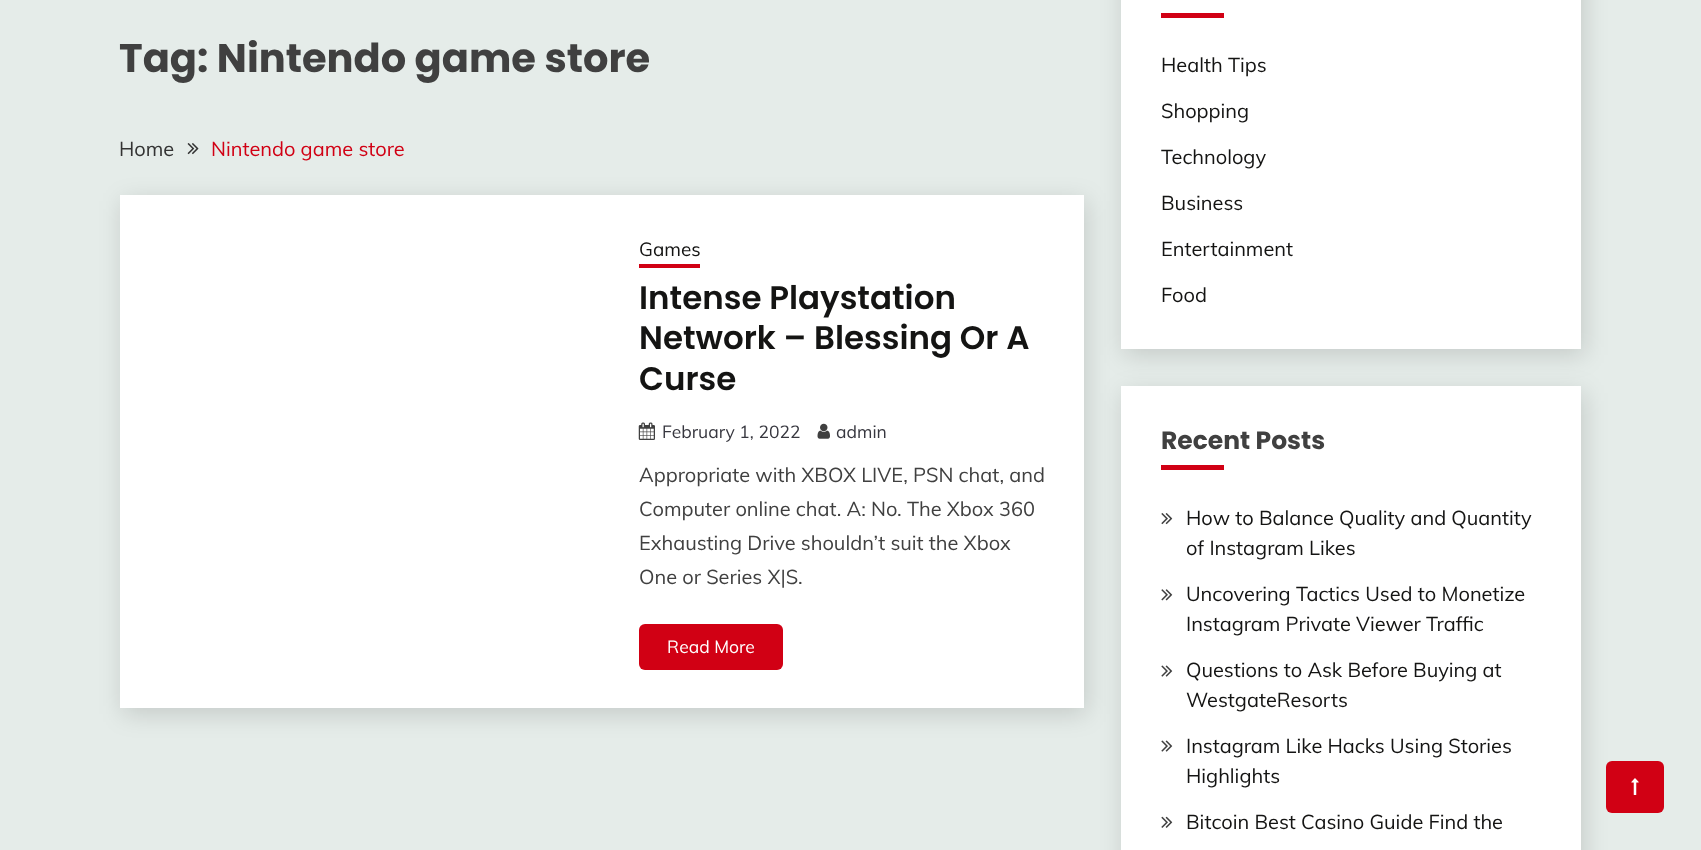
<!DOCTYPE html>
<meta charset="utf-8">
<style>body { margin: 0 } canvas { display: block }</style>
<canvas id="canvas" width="1701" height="850"></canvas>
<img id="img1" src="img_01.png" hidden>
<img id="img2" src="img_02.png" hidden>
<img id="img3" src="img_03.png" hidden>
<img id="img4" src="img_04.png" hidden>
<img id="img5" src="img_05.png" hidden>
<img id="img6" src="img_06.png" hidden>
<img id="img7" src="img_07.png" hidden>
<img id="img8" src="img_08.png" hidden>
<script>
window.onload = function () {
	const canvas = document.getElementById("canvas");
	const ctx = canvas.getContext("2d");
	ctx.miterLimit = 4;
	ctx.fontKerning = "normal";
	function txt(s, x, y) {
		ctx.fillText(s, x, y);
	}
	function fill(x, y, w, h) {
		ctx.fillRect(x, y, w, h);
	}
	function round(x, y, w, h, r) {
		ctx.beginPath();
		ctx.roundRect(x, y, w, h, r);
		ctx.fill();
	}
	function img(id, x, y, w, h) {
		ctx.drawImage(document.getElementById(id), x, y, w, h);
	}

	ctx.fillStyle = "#E5ECE9";
	fill(0, 0, 1701, 850);
	img("img1", 187, 143, 12, 12);
	ctx.fillStyle = "rgba(0, 0, 0, 0.14)";
	ctx.filter = "blur(12.5px)";
	ctx.beginPath();
	ctx.rect(123, 201, 963, 513);
	ctx.fill();
	ctx.filter = "none";
	ctx.fillStyle = "#FFFFFF";
	fill(120, 195, 964, 513);
	ctx.fillStyle = "#D10014";
	fill(639, 264, 61, 4);
	img("img2", 638, 422, 17, 18);
	img("img3", 817, 423, 13, 16);
	round(639, 624, 144, 46, 6);
	ctx.fillStyle = "rgba(0, 0, 0, 0.14)";
	ctx.filter = "blur(12.5px)";
	ctx.beginPath();
	ctx.rect(1124, -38, 460, 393);
	ctx.fill();
	ctx.filter = "none";
	ctx.fillStyle = "#FFFFFF";
	fill(1121, 0, 460, 349);
	ctx.fillStyle = "#D10014";
	fill(1161, 13, 63, 5);
	ctx.fillStyle = "rgba(0, 0, 0, 0.14)";
	ctx.filter = "blur(12.5px)";
	ctx.beginPath();
	ctx.rect(1124, 393, 460, 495);
	ctx.fill();
	ctx.filter = "none";
	ctx.fillStyle = "#FFFFFF";
	fill(1121, 386, 460, 464);
	ctx.fillStyle = "#D10014";
	fill(1161, 465, 63, 5);
	img("img4", 1161, 513, 12, 12);
	img("img5", 1161, 589, 12, 12);
	img("img6", 1161, 665, 12, 12);
	img("img6", 1161, 740, 12, 12);
	img("img7", 1161, 816, 12, 12);
	round(1606, 761, 58, 52, 6);
	img("img8", 1631, 778, 8, 17);
	ctx.font = "bold 40px Poppins";
	ctx.fillStyle = "#404040";
	txt("Tag: Nintendo game store", 119, 72);
	ctx.font = "20px Muli";
	ctx.fillStyle = "#333333";
	txt("Home", 119, 156);
	ctx.fillStyle = "#D10014";
	txt("Nintendo game store", 211, 156);
	ctx.font = "19px Muli";
	ctx.fillStyle = "#141413";
	txt("Games", 639, 256);
	ctx.font = "600 32.5px Poppins";
	txt("Intense Playstation", 639, 309);
	txt("Network – Blessing Or A", 639, 349);
	txt("Curse", 639, 390);
	ctx.font = "17.5px Muli";
	ctx.fillStyle = "#37373F";
	txt("February 1, 2022", 662, 438);
	txt("admin", 836, 438);
	ctx.font = "20px Muli";
	ctx.fillStyle = "#404040";
	txt("Appropriate with XBOX LIVE, PSN chat, and", 639, 482);
	txt("Computer online chat. A: No. The Xbox 360", 639, 516);
	txt("Exhausting Drive shouldn’t suit the Xbox", 639, 550);
	txt("One or Series X|S.", 639, 584);
	ctx.font = "17.5px Muli";
	ctx.fillStyle = "#FFFFFF";
	txt("Read More", 667, 653);
	ctx.font = "20px Muli";
	ctx.fillStyle = "#141413";
	txt("Health Tips", 1161, 72);
	txt("Shopping", 1161, 118);
	txt("Technology", 1161, 164);
	txt("Business", 1161, 210);
	txt("Entertainment", 1161, 256);
	txt("Food", 1161, 302);
	ctx.font = "bold 25px Poppins";
	ctx.fillStyle = "#404040";
	txt("Recent Posts", 1161, 449);
	ctx.font = "20px Muli";
	ctx.fillStyle = "#141413";
	txt("How to Balance Quality and Quantity", 1186, 525);
	txt("of Instagram Likes", 1186, 555);
	txt("Uncovering Tactics Used to Monetize", 1186, 601);
	txt("Instagram Private Viewer Traffic", 1186, 631);
	txt("Questions to Ask Before Buying at", 1186, 677);
	txt("WestgateResorts", 1186, 707);
	txt("Instagram Like Hacks Using Stories", 1186, 753);
	txt("Highlights", 1186, 783);
	txt("Bitcoin Best Casino Guide Find the", 1186, 829);
};
</script>
